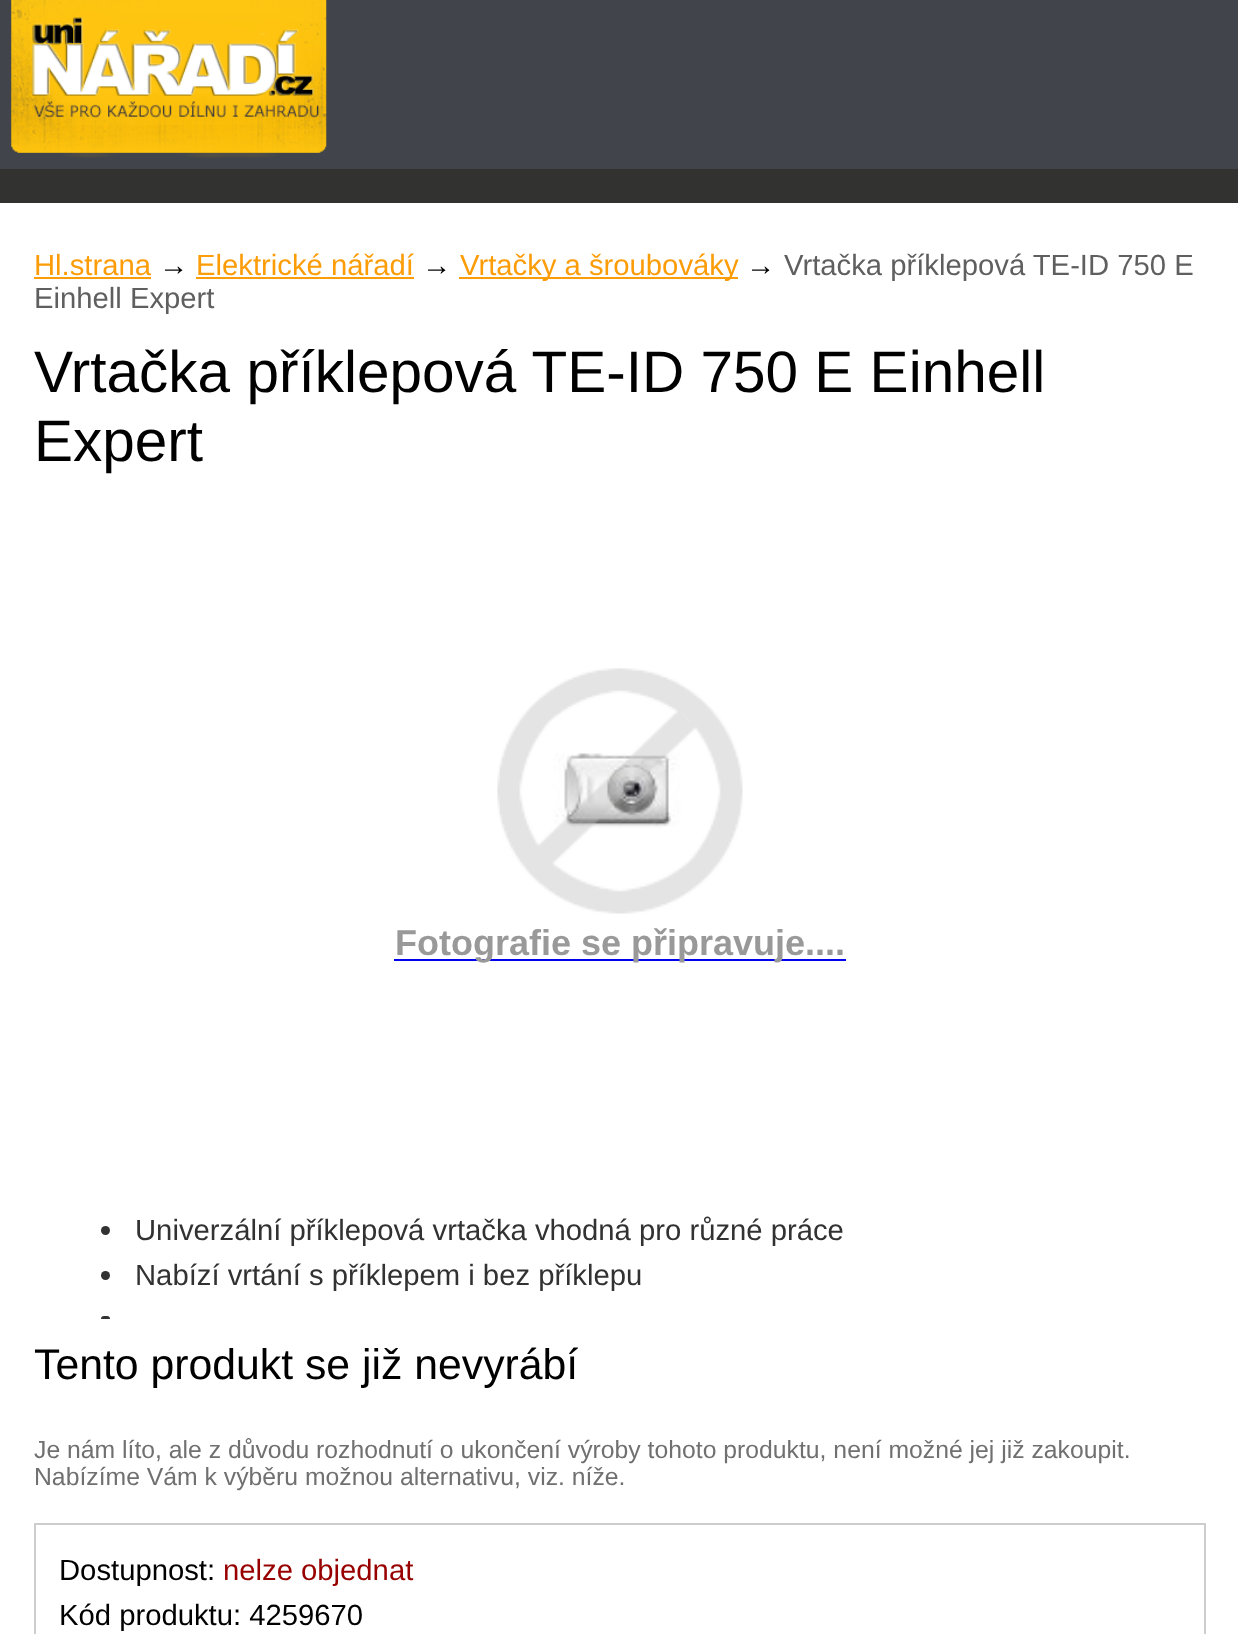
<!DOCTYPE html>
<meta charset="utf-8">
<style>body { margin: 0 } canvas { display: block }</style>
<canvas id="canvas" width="1238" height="1634"></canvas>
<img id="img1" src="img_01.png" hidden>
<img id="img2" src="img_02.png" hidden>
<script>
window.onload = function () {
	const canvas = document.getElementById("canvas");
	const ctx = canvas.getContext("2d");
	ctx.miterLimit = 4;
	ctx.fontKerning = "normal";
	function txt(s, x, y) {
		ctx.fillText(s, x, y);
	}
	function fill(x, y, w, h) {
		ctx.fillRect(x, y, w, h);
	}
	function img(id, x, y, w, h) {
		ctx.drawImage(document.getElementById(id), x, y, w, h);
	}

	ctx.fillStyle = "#323231";
	fill(0, 0, 1238, 1634);
	ctx.fillStyle = "#41444B";
	fill(0, 0, 1238, 169);
	img("img1", 11, 0, 316, 158);
	ctx.fillStyle = "#FFFFFF";
	fill(0, 203, 1238, 1431);
	ctx.fillStyle = "#FC9C07";
	fill(34, 277, 117, 2);
	fill(196, 277, 218, 2);
	fill(459, 277, 279, 2);
	img("img2", 497, 668, 246, 246);
	ctx.fillStyle = "#0000EE";
	fill(394, 959, 452, 2);
	ctx.fillStyle = "#323232";
	ctx.beginPath();
	ctx.arc(105.5, 1230.5, 4.5, 0, Math.PI * 2);
	ctx.fill();
	ctx.beginPath();
	ctx.arc(105.5, 1275.5, 4.5, 0, Math.PI * 2);
	ctx.fill();
	ctx.beginPath();
	ctx.roundRect(101, 1316, 9, 3, [4.5, 4.5, 0, 0]);
	ctx.fill();
	ctx.strokeStyle = "#CDCDCD";
	ctx.lineWidth = 2;
	ctx.strokeRect(35, 1524, 1170, 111);
	ctx.font = "29.25px Liberation Sans";
	ctx.fillStyle = "#FC9C07";
	txt("Hl.strana", 34, 275);
	ctx.fillStyle = "#000000";
	txt("→", 159, 275);
	ctx.fillStyle = "#FC9C07";
	txt("Elektrické nářadí", 196, 275);
	ctx.fillStyle = "#000000";
	txt("→", 422, 275);
	ctx.fillStyle = "#FC9C07";
	txt("Vrtačky a šroubováky", 460, 275);
	ctx.fillStyle = "#000000";
	txt("→", 746, 275);
	ctx.fillStyle = "#5F5F5F";
	txt("Vrtačka příklepová TE-ID 750 E", 784, 275);
	txt("Einhell Expert", 34, 308);
	ctx.font = "58.5px Liberation Sans";
	ctx.fillStyle = "#000000";
	txt("Vrtačka příklepová TE-ID 750 E Einhell", 34, 392);
	txt("Expert", 34, 461);
	ctx.font = "bold 36px Liberation Sans";
	ctx.fillStyle = "#999999";
	txt("Fotografie se připravuje....", 395, 955);
	ctx.font = "29.25px Liberation Sans";
	ctx.fillStyle = "#323232";
	txt("Univerzální příklepová vrtačka vhodná pro různé práce", 135, 1240);
	txt("Nabízí vrtání s příklepem i bez příklepu", 135, 1285);
	ctx.font = "42.75px Liberation Sans";
	ctx.fillStyle = "#000000";
	txt("Tento produkt se již nevyrábí", 34, 1379);
	ctx.font = "24.75px Liberation Sans";
	ctx.fillStyle = "#707070";
	txt("Je nám líto, ale z důvodu rozhodnutí o ukončení výroby tohoto produktu, není možné jej již zakoupit.", 34, 1458);
	txt("Nabízíme Vám k výběru možnou alternativu, viz. níže.", 34, 1485);
	ctx.font = "29.25px Liberation Sans";
	ctx.fillStyle = "#000000";
	txt("Dostupnost:", 59, 1580);
	ctx.fillStyle = "#980000";
	txt("nelze objednat", 223, 1580);
	ctx.fillStyle = "#000000";
	txt("Kód produktu: 4259670", 59, 1625);
};
</script>
